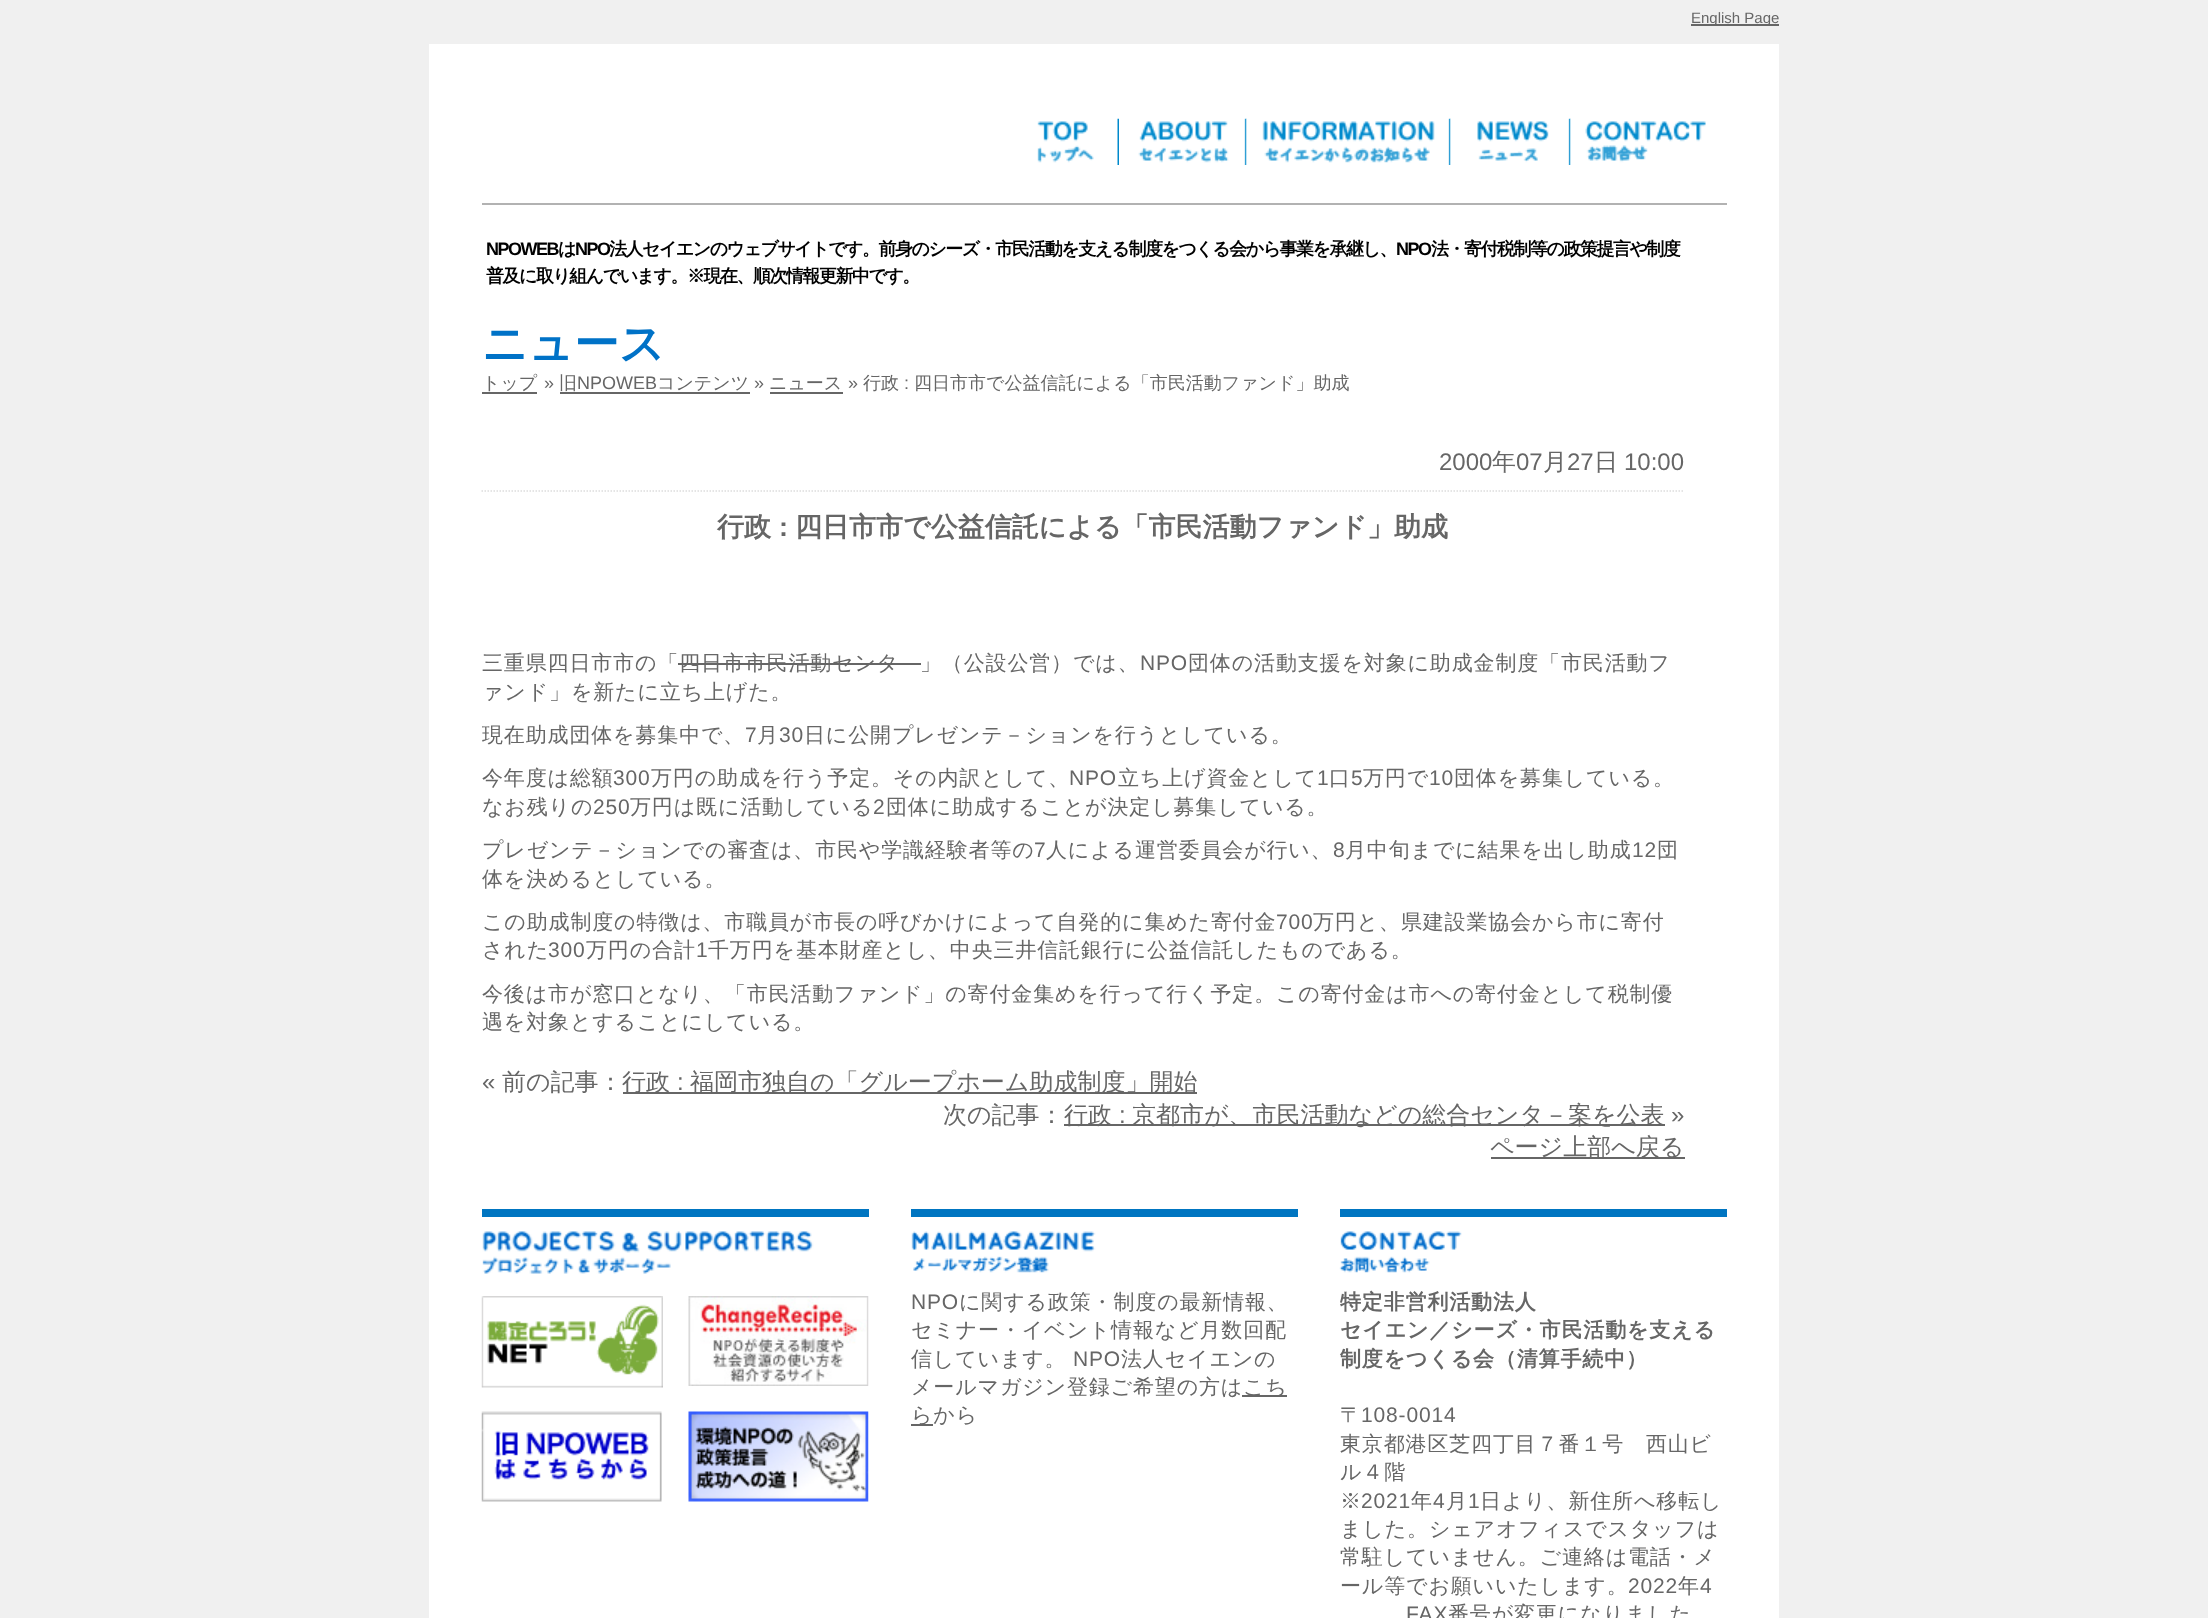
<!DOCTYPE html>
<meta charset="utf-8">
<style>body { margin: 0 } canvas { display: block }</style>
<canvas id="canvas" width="2208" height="1618"></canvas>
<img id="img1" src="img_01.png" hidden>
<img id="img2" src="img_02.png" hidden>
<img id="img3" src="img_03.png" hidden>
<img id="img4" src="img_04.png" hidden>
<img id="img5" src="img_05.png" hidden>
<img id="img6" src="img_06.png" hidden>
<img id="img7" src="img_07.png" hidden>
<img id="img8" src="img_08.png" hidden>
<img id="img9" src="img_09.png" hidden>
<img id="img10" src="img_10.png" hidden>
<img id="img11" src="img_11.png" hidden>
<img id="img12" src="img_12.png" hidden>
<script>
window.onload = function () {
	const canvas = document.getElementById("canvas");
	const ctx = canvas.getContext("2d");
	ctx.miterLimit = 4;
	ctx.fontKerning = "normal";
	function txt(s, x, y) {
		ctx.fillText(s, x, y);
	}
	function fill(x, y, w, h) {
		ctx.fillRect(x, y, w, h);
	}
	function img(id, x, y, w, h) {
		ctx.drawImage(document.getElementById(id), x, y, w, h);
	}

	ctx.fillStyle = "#F0F0F0";
	fill(0, 0, 2208, 1618);
	ctx.fillStyle = "#666666";
	fill(1691, 24, 88, 2);
	ctx.fillStyle = "#FFFFFF";
	fill(429, 44, 1350, 1574);
	img("img1", 1037, 118, 82, 47);
	img("img2", 1138, 118, 109, 47);
	img("img3", 1246, 118, 205, 47);
	img("img4", 1450, 118, 121, 47);
	img("img5", 1570, 118, 136, 47);
	ctx.fillStyle = "#B2B2B2";
	fill(482, 203, 1245, 2);
	ctx.fillStyle = "#666666";
	fill(482, 392, 55, 2);
	fill(560, 392, 190, 2);
	fill(770, 392, 73, 2);
	ctx.beginPath();
	ctx.moveTo(481.5, 491);
	ctx.lineTo(1684.5, 491);
	ctx.strokeStyle = "#DDDDDD";
	ctx.lineWidth = 1.5;
	ctx.setLineDash([1.5, 1.5]);
	ctx.stroke();
	fill(678, 663, 243, 2);
	fill(623, 1092, 574, 2);
	fill(1064, 1124, 601, 2);
	fill(1491, 1157, 194, 2);
	ctx.fillStyle = "#0075C1";
	fill(482, 1209, 387, 8);
	img("img6", 482, 1231, 332, 43);
	img("img7", 481, 1296, 182, 92);
	img("img8", 688, 1296, 181, 90);
	img("img9", 481, 1411, 181, 91);
	img("img10", 688, 1411, 181, 91);
	fill(911, 1209, 387, 8);
	img("img11", 911, 1231, 185, 42);
	ctx.fillStyle = "#666666";
	fill(1242, 1395, 45, 2);
	fill(911, 1424, 22, 2);
	ctx.fillStyle = "#0075C1";
	fill(1340, 1209, 387, 8);
	img("img12", 1339, 1231, 123, 42);
	ctx.font = "15px Liberation Sans";
	ctx.fillStyle = "#666666";
	txt("English Page", 1691, 23);
	ctx.letterSpacing = "-1.5px";
	ctx.font = "bold 18px Liberation Sans";
	ctx.fillStyle = "#000000";
	txt("NPOWEB", 486, 255);
	ctx.font = "bold 18px WenQuanYi Zen Hei";
	txt("は", 558, 255);
	ctx.font = "bold 18px Liberation Sans";
	txt("NPO", 575, 255);
	ctx.font = "bold 18px WenQuanYi Zen Hei";
	txt("法人セイエンのウェブサイトです。前身のシーズ・市民活動を支える制度をつくる会から事業を承継し、", 609, 255);
	ctx.font = "bold 18px Liberation Sans";
	txt("NPO", 1396, 255);
	ctx.font = "bold 18px WenQuanYi Zen Hei";
	txt("法・寄付税制等の政策提言や制度", 1431, 255);
	txt("普及に取り組んでいます。※現在、順次情報更新中です。", 486, 282);
	ctx.letterSpacing = "0px";
	ctx.font = "bold 45px WenQuanYi Zen Hei";
	ctx.fillStyle = "#0072C7";
	txt("ニュース", 482, 359);
	ctx.font = "500 18px WenQuanYi Zen Hei";
	ctx.fillStyle = "#666666";
	txt("トップ", 482, 389);
	ctx.font = "18px Liberation Sans";
	txt("»", 544, 389);
	ctx.font = "500 18px WenQuanYi Zen Hei";
	txt("旧", 559, 389);
	ctx.font = "18px Liberation Sans";
	txt("NPOWEB", 577, 389);
	ctx.font = "500 18px WenQuanYi Zen Hei";
	txt("コンテンツ", 657, 389);
	ctx.font = "18px Liberation Sans";
	txt("»", 754, 389);
	ctx.font = "500 18px WenQuanYi Zen Hei";
	txt("ニュース", 769, 389);
	ctx.font = "18px Liberation Sans";
	txt("»", 848, 389);
	ctx.font = "500 18px WenQuanYi Zen Hei";
	txt("行政", 863, 389);
	ctx.font = "18px Liberation Sans";
	txt(":", 904, 389);
	ctx.font = "500 18px WenQuanYi Zen Hei";
	txt("四日市市で公益信託による「市民活動ファンド」助成", 914, 389);
	ctx.font = "24px Liberation Sans";
	txt("2000", 1439, 470);
	ctx.font = "500 24px WenQuanYi Zen Hei";
	txt("年", 1492, 470);
	ctx.font = "24px Liberation Sans";
	txt("07", 1516, 470);
	ctx.font = "500 24px WenQuanYi Zen Hei";
	txt("月", 1543, 470);
	ctx.font = "24px Liberation Sans";
	txt("27", 1567, 470);
	ctx.font = "500 24px WenQuanYi Zen Hei";
	txt("日", 1594, 470);
	ctx.font = "24px Liberation Sans";
	txt("10:00", 1624, 470);
	ctx.font = "bold 27px WenQuanYi Zen Hei";
	txt("行政", 717, 536);
	ctx.font = "bold 27px Liberation Sans";
	txt(":", 779, 536);
	ctx.font = "bold 27px WenQuanYi Zen Hei";
	txt("四日市市で公益信託による「市民活動ファンド」助成", 795, 536);
	ctx.letterSpacing = "0.85px";
	ctx.font = "500 21px WenQuanYi Zen Hei";
	txt("三重県四日市市の「四日市市民活動センタ", 482, 670);
	txt("」（公設公営）では、", 920, 670);
	ctx.font = "21px Liberation Sans";
	txt("NPO", 1140, 670);
	ctx.font = "500 21px WenQuanYi Zen Hei";
	txt("団体の活動支援を対象に助成金制度「市民活動フ", 1188, 670);
	txt("ァンド」を新たに立ち上げた。", 482, 699);
	ctx.save();
	ctx.beginPath();
	ctx.rect(482, 431, 1203, 748);
	ctx.clip();
	txt("現在助成団体を募集中で、", 482, 742);
	ctx.restore();
	ctx.font = "21px Liberation Sans";
	txt("7", 745, 742);
	ctx.font = "500 21px WenQuanYi Zen Hei";
	txt("月", 757, 742);
	ctx.font = "21px Liberation Sans";
	txt("30", 779, 742);
	ctx.font = "500 21px WenQuanYi Zen Hei";
	txt("日に公開プレゼンテ－ションを行うとしている。", 804, 742);
	txt("今年度は総額", 482, 785);
	ctx.font = "21px Liberation Sans";
	txt("300", 613, 785);
	ctx.font = "500 21px WenQuanYi Zen Hei";
	txt("万円の助成を行う予定。その内訳として、", 651, 785);
	ctx.font = "21px Liberation Sans";
	txt("NPO", 1069, 785);
	ctx.font = "500 21px WenQuanYi Zen Hei";
	txt("立ち上げ資金として", 1118, 785);
	ctx.font = "21px Liberation Sans";
	txt("1", 1317, 785);
	ctx.font = "500 21px WenQuanYi Zen Hei";
	txt("口", 1329, 785);
	ctx.font = "21px Liberation Sans";
	txt("5", 1351, 785);
	ctx.font = "500 21px WenQuanYi Zen Hei";
	txt("万円で", 1363, 785);
	ctx.font = "21px Liberation Sans";
	txt("10", 1429, 785);
	ctx.font = "500 21px WenQuanYi Zen Hei";
	txt("団体を募集している。", 1454, 785);
	txt("なお残りの", 482, 814);
	ctx.font = "21px Liberation Sans";
	txt("250", 593, 814);
	ctx.font = "500 21px WenQuanYi Zen Hei";
	txt("万円は既に活動している", 630, 814);
	ctx.font = "21px Liberation Sans";
	txt("2", 873, 814);
	ctx.font = "500 21px WenQuanYi Zen Hei";
	txt("団体に助成することが決定し募集している。", 886, 814);
	txt("プレゼンテ－ションでの審査は、市民や学識経験者等の", 482, 857);
	ctx.font = "21px Liberation Sans";
	txt("7", 1034, 857);
	ctx.font = "500 21px WenQuanYi Zen Hei";
	txt("人による運営委員会が行い、", 1046, 857);
	ctx.font = "21px Liberation Sans";
	txt("8", 1333, 857);
	ctx.font = "500 21px WenQuanYi Zen Hei";
	txt("月中旬までに結果を出し助成", 1345, 857);
	ctx.font = "21px Liberation Sans";
	txt("12", 1632, 857);
	ctx.font = "500 21px WenQuanYi Zen Hei";
	txt("団", 1657, 857);
	txt("体を決めるとしている。", 482, 886);
	txt("この助成制度の特徴は、市職員が市長の呼びかけによって自発的に集めた寄付金", 482, 929);
	ctx.font = "21px Liberation Sans";
	txt("700", 1276, 929);
	ctx.font = "500 21px WenQuanYi Zen Hei";
	txt("万円と、県建設業協会から市に寄付", 1313, 929);
	txt("された", 482, 957);
	ctx.font = "21px Liberation Sans";
	txt("300", 548, 957);
	ctx.font = "500 21px WenQuanYi Zen Hei";
	txt("万円の合計", 586, 957);
	ctx.font = "21px Liberation Sans";
	txt("1", 696, 957);
	ctx.font = "500 21px WenQuanYi Zen Hei";
	txt("千万円を基本財産とし、中央三井信託銀行に公益信託したものである。", 708, 957);
	txt("今後は市が窓口となり、「市民活動ファンド」の寄付金集めを行って行く予定。この寄付金は市への寄付金として税制優", 482, 1001);
	txt("遇を対象とすることにしている。", 482, 1029);
	ctx.letterSpacing = "0px";
	ctx.font = "24px Liberation Sans";
	txt("«", 482, 1090);
	ctx.font = "500 24px WenQuanYi Zen Hei";
	txt("前の記事：", 502, 1090);
	txt("行政", 622, 1090);
	ctx.font = "24px Liberation Sans";
	txt(":", 677, 1090);
	ctx.font = "500 24px WenQuanYi Zen Hei";
	txt("福岡市独自の「グループホーム助成制度」開始", 690, 1090);
	txt("次の記事：", 943, 1123);
	txt("行政", 1064, 1123);
	ctx.font = "24px Liberation Sans";
	txt(":", 1119, 1123);
	ctx.font = "500 24px WenQuanYi Zen Hei";
	txt("京都市が、市民活動などの総合センタ－案を公表", 1132, 1123);
	ctx.font = "24px Liberation Sans";
	txt("»", 1671, 1123);
	ctx.font = "500 24px WenQuanYi Zen Hei";
	txt("ページ上部へ戻る", 1490, 1155);
	ctx.letterSpacing = "0.85px";
	ctx.font = "21px Liberation Sans";
	txt("NPO", 911, 1309);
	ctx.font = "500 21px WenQuanYi Zen Hei";
	txt("に関する政策・制度の最新情報、", 959, 1309);
	txt("セミナー・イベント情報など月数回配", 911, 1337);
	txt("信しています。", 911, 1366);
	ctx.font = "21px Liberation Sans";
	txt("NPO", 1073, 1366);
	ctx.font = "500 21px WenQuanYi Zen Hei";
	txt("法人セイエンの", 1121, 1366);
	txt("メールマガジン登録ご希望の方は", 911, 1394);
	txt("こち", 1243, 1394);
	txt("らから", 911, 1422);
	ctx.save();
	ctx.beginPath();
	ctx.rect(1340, 1217, 387, 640);
	ctx.clip();
	ctx.font = "bold 21px WenQuanYi Zen Hei";
	txt("特定非営利活動法人", 1340, 1309);
	ctx.restore();
	ctx.font = "bold 21px WenQuanYi Zen Hei";
	txt("セイエン／シーズ・市民活動を支える", 1340, 1337);
	txt("制度をつくる会（清算手続中）", 1340, 1366);
	ctx.font = "500 21px WenQuanYi Zen Hei";
	txt("〒", 1340, 1422);
	ctx.font = "21px Liberation Sans";
	txt("108-0014", 1361, 1422);
	ctx.font = "500 21px WenQuanYi Zen Hei";
	txt("東京都港区芝四丁目７番１号　西山ビ", 1340, 1451);
	txt("ル４階", 1340, 1479);
	txt("※", 1340, 1508);
	ctx.font = "21px Liberation Sans";
	txt("2021", 1361, 1508);
	ctx.font = "500 21px WenQuanYi Zen Hei";
	txt("年", 1411, 1508);
	ctx.font = "21px Liberation Sans";
	txt("4", 1433, 1508);
	ctx.font = "500 21px WenQuanYi Zen Hei";
	txt("月", 1446, 1508);
	ctx.font = "21px Liberation Sans";
	txt("1", 1468, 1508);
	ctx.font = "500 21px WenQuanYi Zen Hei";
	txt("日より、新住所へ移転し", 1480, 1508);
	txt("ました。シェアオフィスでスタッフは", 1340, 1536);
	txt("常駐していません。ご連絡は電話・メ", 1340, 1564);
	txt("ール等でお願いいたします。", 1340, 1593);
	ctx.font = "21px Liberation Sans";
	txt("2022", 1628, 1593);
	ctx.font = "500 21px WenQuanYi Zen Hei";
	txt("年", 1678, 1593);
	ctx.font = "21px Liberation Sans";
	txt("4", 1700, 1593);
	txt("FAX", 1406, 1621);
	ctx.font = "500 21px WenQuanYi Zen Hei";
	txt("番号が変更になりました", 1448, 1621);
};
</script>
